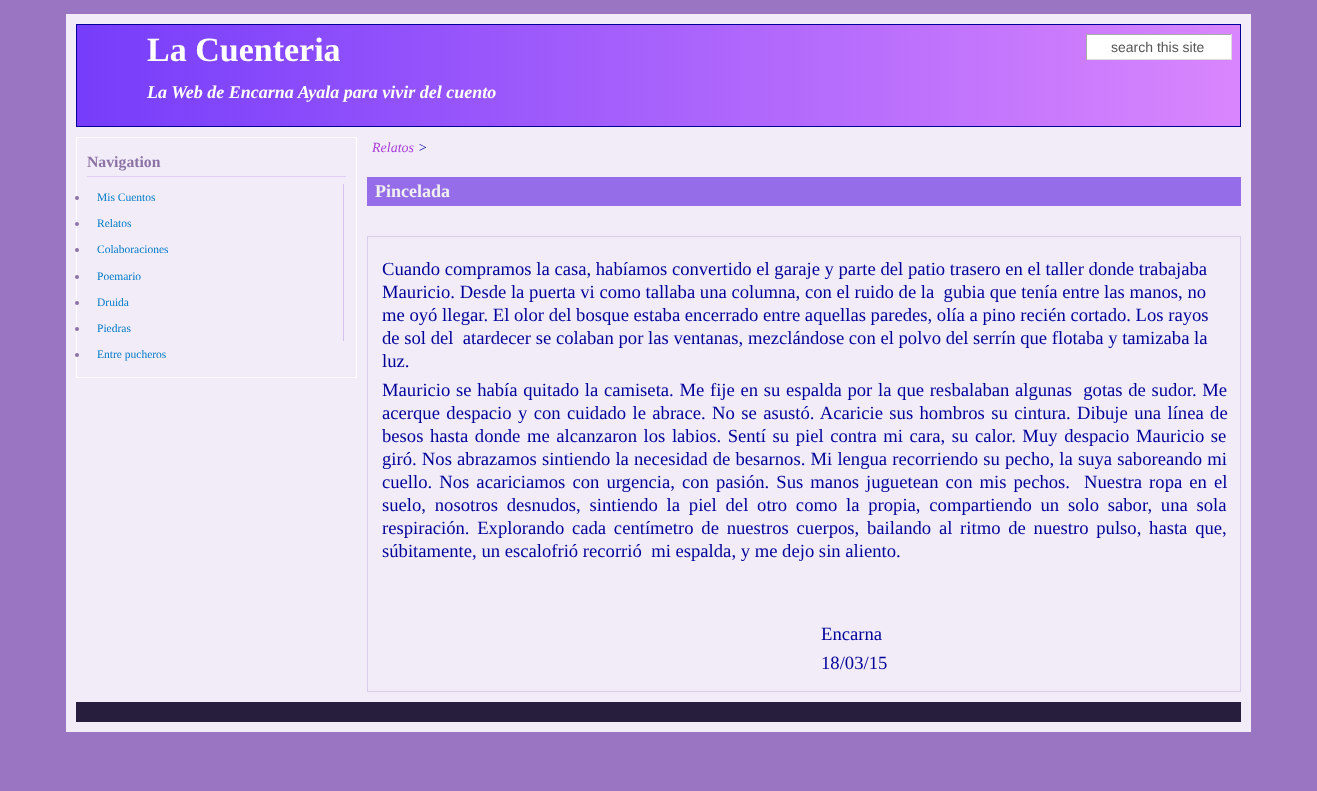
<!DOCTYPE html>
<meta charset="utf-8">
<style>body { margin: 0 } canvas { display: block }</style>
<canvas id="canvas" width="1317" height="791"></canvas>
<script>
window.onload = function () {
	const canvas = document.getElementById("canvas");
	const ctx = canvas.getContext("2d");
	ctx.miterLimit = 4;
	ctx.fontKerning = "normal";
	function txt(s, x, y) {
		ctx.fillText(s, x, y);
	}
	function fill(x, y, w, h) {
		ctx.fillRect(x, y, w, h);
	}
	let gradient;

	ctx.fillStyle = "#9975C2";
	fill(0, 0, 1317, 791);
	ctx.fillStyle = "#F2ECF8";
	fill(66, 14, 1185, 718);
	gradient = ctx.createLinearGradient(77, 76, 1240, 75);
	gradient.addColorStop(0, "#763DFA");
	gradient.addColorStop(1, "#D986FD");
	ctx.fillStyle = gradient;
	fill(77, 25, 1163, 101);
	ctx.strokeStyle = "#000099";
	ctx.strokeRect(76.5, 24.5, 1164, 102);
	ctx.fillStyle = "#FFFFFF";
	fill(1087, 35, 144, 24);
	ctx.fillStyle = "#AAAAAA";
	fill(1086, 34, 146, 1);
	ctx.fillStyle = "#DDDDDD";
	fill(1231, 34, 1, 26);
	fill(1086, 59, 146, 1);
	ctx.fillStyle = "#AAAAAA";
	fill(1086, 34, 1, 26);
	ctx.strokeStyle = "#FFFFFF";
	ctx.strokeRect(76.5, 137.5, 280, 240);
	ctx.fillStyle = "#E0D1F5";
	fill(87, 176, 259, 1);
	ctx.fillStyle = "#8C73A5";
	ctx.beginPath();
	ctx.arc(77, 198, 2, 0, Math.PI * 2);
	ctx.fill();
	ctx.fillStyle = "#D4C3EF";
	fill(343, 184, 1, 157);
	ctx.fillStyle = "#8C73A5";
	ctx.beginPath();
	ctx.arc(77, 224, 2, 0, Math.PI * 2);
	ctx.fill();
	ctx.beginPath();
	ctx.arc(77, 250, 2, 0, Math.PI * 2);
	ctx.fill();
	ctx.beginPath();
	ctx.arc(77, 277, 2, 0, Math.PI * 2);
	ctx.fill();
	ctx.beginPath();
	ctx.arc(77, 303, 2, 0, Math.PI * 2);
	ctx.fill();
	ctx.beginPath();
	ctx.arc(77, 329, 2, 0, Math.PI * 2);
	ctx.fill();
	ctx.beginPath();
	ctx.arc(77, 355, 2, 0, Math.PI * 2);
	ctx.fill();
	ctx.fillStyle = "#956DE9";
	fill(367, 177, 874, 29);
	ctx.strokeStyle = "#D9CDE9";
	ctx.strokeRect(367.5, 236.5, 873, 455);
	ctx.fillStyle = "#271E3E";
	fill(76, 702, 1165, 20);
	ctx.font = "bold 34px Liberation Serif";
	ctx.fillStyle = "#FFFFFF";
	txt("La Cuenteria", 147, 61);
	ctx.font = "italic bold 18px Liberation Serif";
	txt("La Web de Encarna Ayala para vivir del cuento", 147, 98);
	ctx.font = "14px Liberation Sans";
	ctx.fillStyle = "#555555";
	txt("search this site", 1111, 52);
	ctx.font = "bold 15.75px Liberation Serif";
	ctx.fillStyle = "#8C73A5";
	txt("Navigation", 87, 167);
	ctx.font = "11.5px Liberation Serif";
	ctx.fillStyle = "#027AC6";
	txt("Mis Cuentos", 97, 201);
	txt("Relatos", 97, 227);
	txt("Colaboraciones", 97, 253);
	txt("Poemario", 97, 280);
	txt("Druida", 97, 306);
	txt("Piedras", 97, 332);
	txt("Entre pucheros", 97, 358);
	ctx.font = "italic 14px Liberation Serif";
	ctx.fillStyle = "#AA3EDA";
	txt("Relatos", 372, 152);
	ctx.fillStyle = "#000099";
	txt(">", 418, 152);
	ctx.font = "bold 18px Liberation Serif";
	ctx.fillStyle = "#F1F1F1";
	txt("Pincelada", 375, 197);
	ctx.font = "18.65px Liberation Serif";
	ctx.fillStyle = "#000099";
	txt("Cuando compramos la casa, habíamos convertido el garaje y parte del patio trasero en el taller donde trabajaba", 382, 275);
	txt("Mauricio. Desde la puerta vi como tallaba una columna, con el ruido de la  gubia que tenía entre las manos, no", 382, 298);
	txt("me oyó llegar. El olor del bosque estaba encerrado entre aquellas paredes, olía a pino recién cortado. Los rayos", 382, 321);
	txt("de sol del  atardecer se colaban por las ventanas, mezclándose con el polvo del serrín que flotaba y tamizaba la", 382, 344);
	txt("luz.", 382, 367);
	ctx.wordSpacing = "1px";
	txt("Mauricio se había quitado la camiseta. Me fije en su espalda por la que resbalaban algunas  gotas de sudor. Me", 382, 396);
	ctx.wordSpacing = "1.75px";
	txt("acerque despacio y con cuidado le abrace. No se asustó. Acaricie sus hombros su cintura. Dibuje una línea de", 382, 419);
	ctx.wordSpacing = "1.9px";
	txt("besos hasta donde me alcanzaron los labios. Sentí su piel contra mi cara, su calor. Muy despacio Mauricio se", 382, 442);
	ctx.wordSpacing = "0.5px";
	txt("giró. Nos abrazamos sintiendo la necesidad de besarnos. Mi lengua recorriendo su pecho, la suya saboreando mi", 382, 465);
	ctx.wordSpacing = "2.4px";
	txt("cuello. Nos acariciamos con urgencia, con pasión. Sus manos juguetean con mis pechos.  Nuestra ropa en el", 382, 488);
	ctx.wordSpacing = "4.1px";
	txt("suelo, nosotros desnudos, sintiendo la piel del otro como la propia, compartiendo un solo sabor, una sola", 382, 511);
	ctx.wordSpacing = "3.1px";
	txt("respiración. Explorando cada centímetro de nuestros cuerpos, bailando al ritmo de nuestro pulso, hasta que,", 382, 534);
	ctx.wordSpacing = "0px";
	txt("súbitamente, un escalofrió recorrió  mi espalda, y me dejo sin aliento.", 382, 557);
	txt("Encarna", 821, 640);
	txt("18/03/15", 821, 669);
};
</script>
